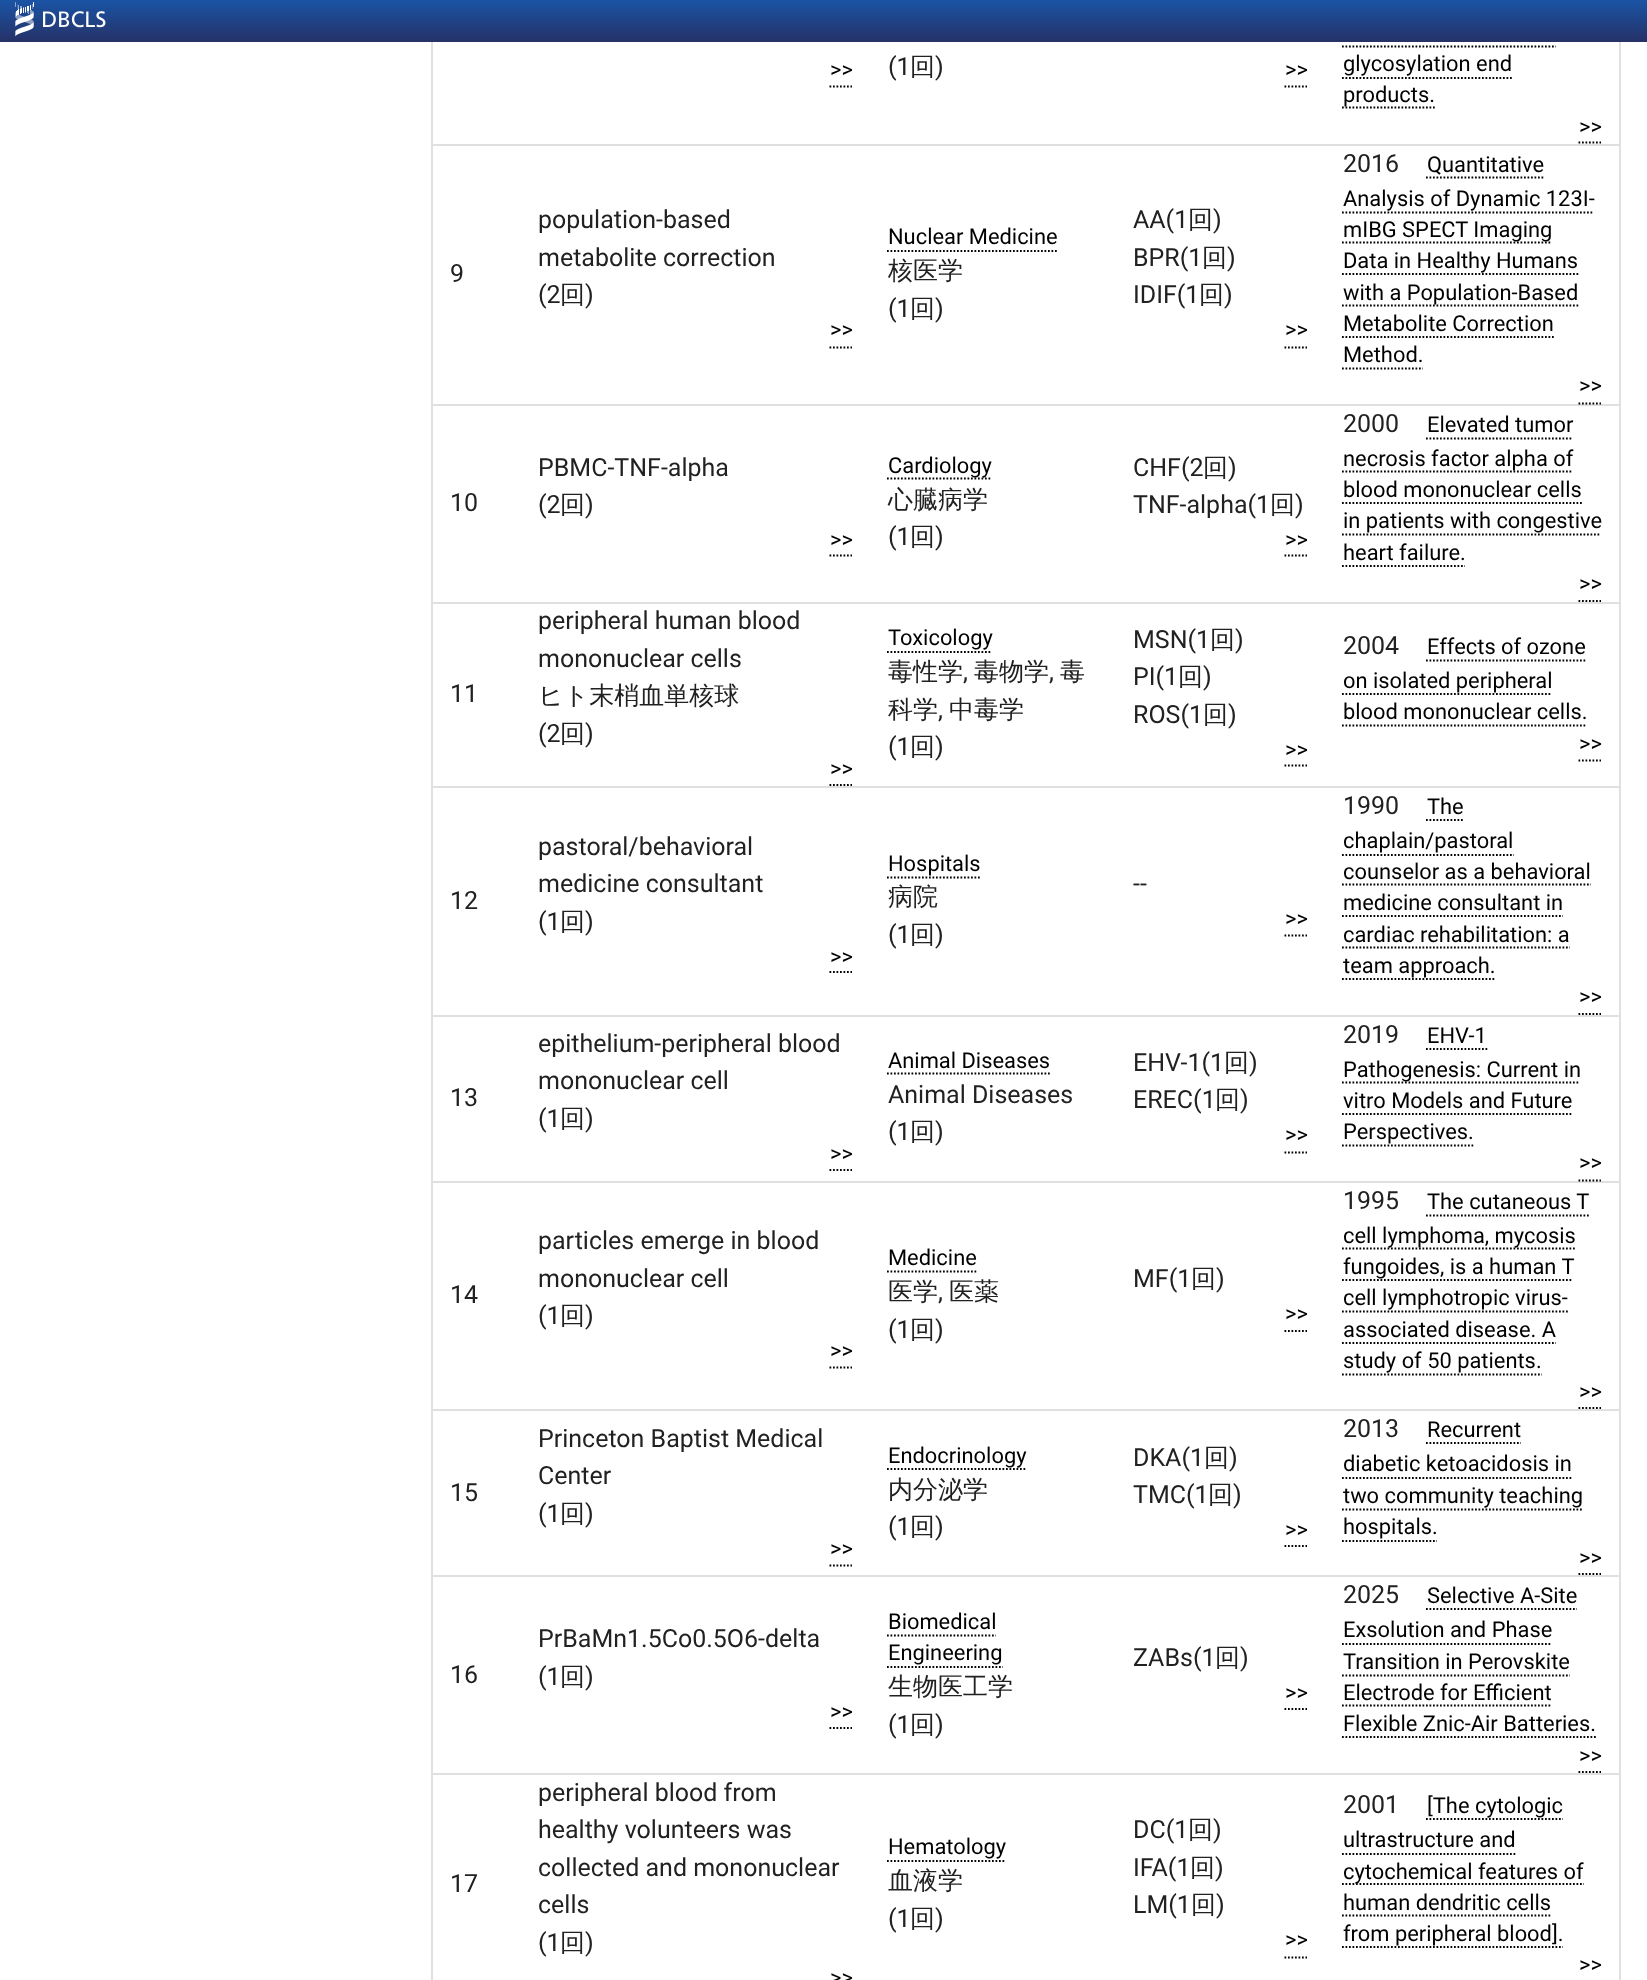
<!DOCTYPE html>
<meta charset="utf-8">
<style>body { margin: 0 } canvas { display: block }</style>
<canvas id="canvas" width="1647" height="1980"></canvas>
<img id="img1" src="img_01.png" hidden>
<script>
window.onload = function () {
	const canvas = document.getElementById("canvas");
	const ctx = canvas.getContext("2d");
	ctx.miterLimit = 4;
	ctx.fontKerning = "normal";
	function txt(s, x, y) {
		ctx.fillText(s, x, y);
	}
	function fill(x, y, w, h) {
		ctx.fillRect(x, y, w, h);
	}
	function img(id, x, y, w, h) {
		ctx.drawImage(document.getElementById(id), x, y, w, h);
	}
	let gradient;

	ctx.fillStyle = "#FFFFFF";
	fill(0, 0, 1647, 1980);
	ctx.strokeStyle = "#E0E0E0";
	ctx.lineWidth = 2;
	ctx.strokeRect(432, -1, 1188, 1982);
	gradient = ctx.createLinearGradient(824, 0, 824, 42);
	gradient.addColorStop(0, "#1A54A5");
	gradient.addColorStop(1, "#263167");
	ctx.fillStyle = gradient;
	fill(0, 0, 1647, 42);
	img("img1", 15, 2, 91, 35);
	ctx.beginPath();
	ctx.moveTo(829.5, 86.5);
	ctx.lineTo(852, 86.5);
	ctx.strokeStyle = "#000000";
	ctx.lineWidth = 1.8;
	ctx.setLineDash([1.75, 1.75]);
	ctx.stroke();
	ctx.beginPath();
	ctx.moveTo(1284.5, 86.5);
	ctx.lineTo(1307, 86.5);
	ctx.stroke();
	ctx.beginPath();
	ctx.moveTo(1342, 46.5);
	ctx.lineTo(1556, 46.5);
	ctx.stroke();
	ctx.beginPath();
	ctx.moveTo(1342, 78);
	ctx.lineTo(1512, 78);
	ctx.stroke();
	ctx.beginPath();
	ctx.moveTo(1342, 107.5);
	ctx.lineTo(1435, 107.5);
	ctx.stroke();
	ctx.beginPath();
	ctx.moveTo(1578.5, 142.5);
	ctx.lineTo(1601, 142.5);
	ctx.stroke();
	ctx.fillStyle = "#E0E0E0";
	fill(432, 144, 1187, 2);
	fill(432, 404, 1187, 2);
	ctx.beginPath();
	ctx.moveTo(829.5, 347.5);
	ctx.lineTo(852, 347.5);
	ctx.stroke();
	ctx.beginPath();
	ctx.moveTo(887, 251);
	ctx.lineTo(1057, 251);
	ctx.stroke();
	ctx.beginPath();
	ctx.moveTo(1284.5, 347.5);
	ctx.lineTo(1307, 347.5);
	ctx.stroke();
	ctx.beginPath();
	ctx.moveTo(1426, 177.5);
	ctx.lineTo(1543.5, 177.5);
	ctx.stroke();
	ctx.beginPath();
	ctx.moveTo(1342, 212.5);
	ctx.lineTo(1594, 212.5);
	ctx.stroke();
	ctx.beginPath();
	ctx.moveTo(1342, 242.5);
	ctx.lineTo(1552, 242.5);
	ctx.stroke();
	ctx.beginPath();
	ctx.moveTo(1342, 274);
	ctx.lineTo(1578.5, 274);
	ctx.stroke();
	ctx.beginPath();
	ctx.moveTo(1342, 305.5);
	ctx.lineTo(1578.5, 305.5);
	ctx.stroke();
	ctx.beginPath();
	ctx.moveTo(1342, 337);
	ctx.lineTo(1554, 337);
	ctx.stroke();
	ctx.beginPath();
	ctx.moveTo(1342, 368.5);
	ctx.lineTo(1423, 368.5);
	ctx.stroke();
	ctx.beginPath();
	ctx.moveTo(1578.5, 403.5);
	ctx.lineTo(1601, 403.5);
	ctx.stroke();
	fill(432, 602, 1187, 2);
	ctx.beginPath();
	ctx.moveTo(829.5, 555.5);
	ctx.lineTo(852, 555.5);
	ctx.stroke();
	ctx.beginPath();
	ctx.moveTo(887, 478.5);
	ctx.lineTo(992, 478.5);
	ctx.stroke();
	ctx.beginPath();
	ctx.moveTo(1284.5, 555.5);
	ctx.lineTo(1307, 555.5);
	ctx.stroke();
	ctx.beginPath();
	ctx.moveTo(1426, 438.5);
	ctx.lineTo(1573, 438.5);
	ctx.stroke();
	ctx.beginPath();
	ctx.moveTo(1342, 471.5);
	ctx.lineTo(1573, 471.5);
	ctx.stroke();
	ctx.beginPath();
	ctx.moveTo(1342, 503);
	ctx.lineTo(1582, 503);
	ctx.stroke();
	ctx.beginPath();
	ctx.moveTo(1342, 534.5);
	ctx.lineTo(1601, 534.5);
	ctx.stroke();
	ctx.beginPath();
	ctx.moveTo(1342, 566);
	ctx.lineTo(1465, 566);
	ctx.stroke();
	ctx.beginPath();
	ctx.moveTo(1578.5, 601);
	ctx.lineTo(1601, 601);
	ctx.stroke();
	fill(432, 786, 1187, 2);
	ctx.beginPath();
	ctx.moveTo(829.5, 785);
	ctx.lineTo(852, 785);
	ctx.stroke();
	ctx.beginPath();
	ctx.moveTo(887, 652);
	ctx.lineTo(992, 652);
	ctx.stroke();
	ctx.beginPath();
	ctx.moveTo(1284.5, 765.5);
	ctx.lineTo(1307, 765.5);
	ctx.stroke();
	ctx.beginPath();
	ctx.moveTo(1426, 660.5);
	ctx.lineTo(1585.5, 660.5);
	ctx.stroke();
	ctx.beginPath();
	ctx.moveTo(1342, 694);
	ctx.lineTo(1552, 694);
	ctx.stroke();
	ctx.beginPath();
	ctx.moveTo(1342, 725.5);
	ctx.lineTo(1587, 725.5);
	ctx.stroke();
	ctx.beginPath();
	ctx.moveTo(1578.5, 760.5);
	ctx.lineTo(1601, 760.5);
	ctx.stroke();
	fill(432, 1015, 1187, 2);
	ctx.beginPath();
	ctx.moveTo(829.5, 972);
	ctx.lineTo(852, 972);
	ctx.stroke();
	ctx.beginPath();
	ctx.moveTo(887, 877.5);
	ctx.lineTo(980, 877.5);
	ctx.stroke();
	ctx.beginPath();
	ctx.moveTo(1284.5, 935.5);
	ctx.lineTo(1307, 935.5);
	ctx.stroke();
	ctx.beginPath();
	ctx.moveTo(1426, 820);
	ctx.lineTo(1463, 820);
	ctx.stroke();
	ctx.beginPath();
	ctx.moveTo(1342, 855);
	ctx.lineTo(1514, 855);
	ctx.stroke();
	ctx.beginPath();
	ctx.moveTo(1342, 884.5);
	ctx.lineTo(1591, 884.5);
	ctx.stroke();
	ctx.beginPath();
	ctx.moveTo(1342, 916);
	ctx.lineTo(1563, 916);
	ctx.stroke();
	ctx.beginPath();
	ctx.moveTo(1342, 947.5);
	ctx.lineTo(1570, 947.5);
	ctx.stroke();
	ctx.beginPath();
	ctx.moveTo(1342, 979);
	ctx.lineTo(1494.5, 979);
	ctx.stroke();
	ctx.beginPath();
	ctx.moveTo(1578.5, 1014);
	ctx.lineTo(1601, 1014);
	ctx.stroke();
	fill(432, 1181, 1187, 2);
	ctx.beginPath();
	ctx.moveTo(829.5, 1170);
	ctx.lineTo(852, 1170);
	ctx.stroke();
	ctx.beginPath();
	ctx.moveTo(887, 1073.5);
	ctx.lineTo(1050, 1073.5);
	ctx.stroke();
	ctx.beginPath();
	ctx.moveTo(1284.5, 1152.5);
	ctx.lineTo(1307, 1152.5);
	ctx.stroke();
	ctx.beginPath();
	ctx.moveTo(1426, 1049);
	ctx.lineTo(1487.5, 1049);
	ctx.stroke();
	ctx.beginPath();
	ctx.moveTo(1342, 1082.5);
	ctx.lineTo(1580, 1082.5);
	ctx.stroke();
	ctx.beginPath();
	ctx.moveTo(1342, 1114);
	ctx.lineTo(1571.5, 1114);
	ctx.stroke();
	ctx.beginPath();
	ctx.moveTo(1342, 1145.5);
	ctx.lineTo(1473.5, 1145.5);
	ctx.stroke();
	ctx.beginPath();
	ctx.moveTo(1578.5, 1180.5);
	ctx.lineTo(1601, 1180.5);
	ctx.stroke();
	fill(432, 1409, 1187, 2);
	ctx.beginPath();
	ctx.moveTo(829.5, 1367.5);
	ctx.lineTo(852, 1367.5);
	ctx.stroke();
	ctx.beginPath();
	ctx.moveTo(887, 1271.5);
	ctx.lineTo(976.5, 1271.5);
	ctx.stroke();
	ctx.beginPath();
	ctx.moveTo(1284.5, 1331);
	ctx.lineTo(1307, 1331);
	ctx.stroke();
	ctx.beginPath();
	ctx.moveTo(1426, 1215.5);
	ctx.lineTo(1589, 1215.5);
	ctx.stroke();
	ctx.beginPath();
	ctx.moveTo(1342, 1248.5);
	ctx.lineTo(1575, 1248.5);
	ctx.stroke();
	ctx.beginPath();
	ctx.moveTo(1342, 1280);
	ctx.lineTo(1573, 1280);
	ctx.stroke();
	ctx.beginPath();
	ctx.moveTo(1342, 1311.5);
	ctx.lineTo(1568, 1311.5);
	ctx.stroke();
	ctx.beginPath();
	ctx.moveTo(1342, 1343);
	ctx.lineTo(1556, 1343);
	ctx.stroke();
	ctx.beginPath();
	ctx.moveTo(1342, 1374.5);
	ctx.lineTo(1542, 1374.5);
	ctx.stroke();
	ctx.beginPath();
	ctx.moveTo(1578.5, 1408);
	ctx.lineTo(1601, 1408);
	ctx.stroke();
	fill(432, 1575, 1187, 2);
	ctx.beginPath();
	ctx.moveTo(829.5, 1565.5);
	ctx.lineTo(852, 1565.5);
	ctx.stroke();
	ctx.beginPath();
	ctx.moveTo(887, 1469);
	ctx.lineTo(1025.5, 1469);
	ctx.stroke();
	ctx.beginPath();
	ctx.moveTo(1284.5, 1546);
	ctx.lineTo(1307, 1546);
	ctx.stroke();
	ctx.beginPath();
	ctx.moveTo(1426, 1443);
	ctx.lineTo(1521, 1443);
	ctx.stroke();
	ctx.beginPath();
	ctx.moveTo(1342, 1478);
	ctx.lineTo(1571.5, 1478);
	ctx.stroke();
	ctx.beginPath();
	ctx.moveTo(1342, 1509.5);
	ctx.lineTo(1582, 1509.5);
	ctx.stroke();
	ctx.beginPath();
	ctx.moveTo(1342, 1541);
	ctx.lineTo(1437, 1541);
	ctx.stroke();
	ctx.beginPath();
	ctx.moveTo(1578.5, 1574);
	ctx.lineTo(1601, 1574);
	ctx.stroke();
	fill(432, 1773, 1187, 2);
	ctx.beginPath();
	ctx.moveTo(829.5, 1728);
	ctx.lineTo(852, 1728);
	ctx.stroke();
	ctx.beginPath();
	ctx.moveTo(887, 1635.5);
	ctx.lineTo(996, 1635.5);
	ctx.stroke();
	ctx.beginPath();
	ctx.moveTo(887, 1667);
	ctx.lineTo(1003, 1667);
	ctx.stroke();
	ctx.beginPath();
	ctx.moveTo(1284.5, 1709);
	ctx.lineTo(1307, 1709);
	ctx.stroke();
	ctx.beginPath();
	ctx.moveTo(1426, 1609);
	ctx.lineTo(1577, 1609);
	ctx.stroke();
	ctx.beginPath();
	ctx.moveTo(1342, 1644);
	ctx.lineTo(1552, 1644);
	ctx.stroke();
	ctx.beginPath();
	ctx.moveTo(1342, 1675.5);
	ctx.lineTo(1570, 1675.5);
	ctx.stroke();
	ctx.beginPath();
	ctx.moveTo(1342, 1705.5);
	ctx.lineTo(1550.5, 1705.5);
	ctx.stroke();
	ctx.beginPath();
	ctx.moveTo(1342, 1737);
	ctx.lineTo(1596, 1737);
	ctx.stroke();
	ctx.beginPath();
	ctx.moveTo(1578.5, 1772);
	ctx.lineTo(1601, 1772);
	ctx.stroke();
	ctx.beginPath();
	ctx.moveTo(887, 1861);
	ctx.lineTo(1006, 1861);
	ctx.stroke();
	ctx.beginPath();
	ctx.moveTo(1284.5, 1957.5);
	ctx.lineTo(1307, 1957.5);
	ctx.stroke();
	ctx.beginPath();
	ctx.moveTo(1426, 1819);
	ctx.lineTo(1563, 1819);
	ctx.stroke();
	ctx.beginPath();
	ctx.moveTo(1342, 1854);
	ctx.lineTo(1515.5, 1854);
	ctx.stroke();
	ctx.beginPath();
	ctx.moveTo(1342, 1884);
	ctx.lineTo(1584, 1884);
	ctx.stroke();
	ctx.beginPath();
	ctx.moveTo(1342, 1915.5);
	ctx.lineTo(1550.5, 1915.5);
	ctx.stroke();
	ctx.beginPath();
	ctx.moveTo(1342, 1947);
	ctx.lineTo(1563, 1947);
	ctx.stroke();
	ctx.font = "21.9px Roboto";
	ctx.fillStyle = "#000000";
	txt(">>", 830, 77);
	ctx.font = "25px Roboto";
	ctx.fillStyle = "#212121";
	txt("(1", 888, 75);
	ctx.font = "500 25px WenQuanYi Zen Hei";
	txt("回", 910, 75);
	ctx.font = "25px Roboto";
	txt(")", 935, 75);
	ctx.font = "21.9px Roboto";
	ctx.fillStyle = "#000000";
	txt(">>", 1285, 77);
	txt("glycosylation end", 1343, 71);
	txt("products.", 1343, 102);
	txt(">>", 1579, 134);
	ctx.font = "25px Roboto";
	ctx.fillStyle = "#212121";
	txt("9", 450, 282);
	txt("population-based", 538, 228);
	txt("metabolite correction", 538, 266);
	txt("(2", 538, 303);
	ctx.font = "500 25px WenQuanYi Zen Hei";
	txt("回", 560, 303);
	ctx.font = "25px Roboto";
	txt(")", 585, 303);
	ctx.font = "21.9px Roboto";
	ctx.fillStyle = "#000000";
	txt(">>", 830, 337);
	txt("Nuclear Medicine", 888, 244);
	ctx.font = "500 25px WenQuanYi Zen Hei";
	ctx.fillStyle = "#212121";
	txt("核医学", 888, 279);
	ctx.font = "25px Roboto";
	txt("(1", 888, 317);
	ctx.font = "500 25px WenQuanYi Zen Hei";
	txt("回", 910, 317);
	ctx.font = "25px Roboto";
	txt(")", 935, 317);
	txt("AA(1", 1133, 228);
	ctx.font = "500 25px WenQuanYi Zen Hei";
	txt("回", 1188, 228);
	ctx.font = "25px Roboto";
	txt(")", 1213, 228);
	txt("BPR(1", 1133, 266);
	ctx.font = "500 25px WenQuanYi Zen Hei";
	txt("回", 1202, 266);
	ctx.font = "25px Roboto";
	txt(")", 1227, 266);
	txt("IDIF(1", 1133, 303);
	ctx.font = "500 25px WenQuanYi Zen Hei";
	txt("回", 1199, 303);
	ctx.font = "25px Roboto";
	txt(")", 1224, 303);
	ctx.font = "21.9px Roboto";
	ctx.fillStyle = "#000000";
	txt(">>", 1285, 337);
	ctx.font = "25px Roboto";
	ctx.fillStyle = "#212121";
	txt("2016", 1343, 172);
	ctx.font = "21.9px Roboto";
	ctx.fillStyle = "#000000";
	txt("Quantitative", 1427, 172);
	txt("Analysis of Dynamic 123I-", 1343, 206);
	txt("mIBG SPECT Imaging", 1343, 237);
	txt("Data in Healthy Humans", 1343, 268);
	txt("with a Population-Based", 1343, 300);
	txt("Metabolite Correction", 1343, 331);
	txt("Method.", 1343, 362);
	txt(">>", 1579, 393);
	ctx.font = "25px Roboto";
	ctx.fillStyle = "#212121";
	txt("10", 450, 511);
	txt("PBMC-TNF-alpha", 538, 476);
	txt("(2", 538, 513);
	ctx.font = "500 25px WenQuanYi Zen Hei";
	txt("回", 560, 513);
	ctx.font = "25px Roboto";
	txt(")", 585, 513);
	ctx.font = "21.9px Roboto";
	ctx.fillStyle = "#000000";
	txt(">>", 830, 547);
	txt("Cardiology", 888, 473);
	ctx.font = "500 25px WenQuanYi Zen Hei";
	ctx.fillStyle = "#212121";
	txt("心臓病学", 888, 508);
	ctx.font = "25px Roboto";
	txt("(1", 888, 545);
	ctx.font = "500 25px WenQuanYi Zen Hei";
	txt("回", 910, 545);
	ctx.font = "25px Roboto";
	txt(")", 935, 545);
	txt("CHF(2", 1133, 476);
	ctx.font = "500 25px WenQuanYi Zen Hei";
	txt("回", 1203, 476);
	ctx.font = "25px Roboto";
	txt(")", 1228, 476);
	txt("TNF-alpha(1", 1133, 513);
	ctx.font = "500 25px WenQuanYi Zen Hei";
	txt("回", 1270, 513);
	ctx.font = "25px Roboto";
	txt(")", 1295, 513);
	ctx.font = "21.9px Roboto";
	ctx.fillStyle = "#000000";
	txt(">>", 1285, 547);
	ctx.font = "25px Roboto";
	ctx.fillStyle = "#212121";
	txt("2000", 1343, 432);
	ctx.font = "21.9px Roboto";
	ctx.fillStyle = "#000000";
	txt("Elevated tumor", 1427, 432);
	txt("necrosis factor alpha of", 1343, 466);
	txt("blood mononuclear cells", 1343, 497);
	txt("in patients with congestive", 1343, 528);
	txt("heart failure.", 1343, 560);
	txt(">>", 1579, 591);
	ctx.font = "25px Roboto";
	ctx.fillStyle = "#212121";
	txt("11", 450, 702);
	txt("peripheral human blood", 538, 629);
	txt("mononuclear cells", 538, 667);
	ctx.font = "500 25px WenQuanYi Zen Hei";
	txt("ヒト末梢血単核球", 538, 704);
	ctx.font = "25px Roboto";
	txt("(2", 538, 742);
	ctx.font = "500 25px WenQuanYi Zen Hei";
	txt("回", 560, 742);
	ctx.font = "25px Roboto";
	txt(")", 585, 742);
	ctx.font = "21.9px Roboto";
	ctx.fillStyle = "#000000";
	txt(">>", 830, 776);
	txt("Toxicology", 888, 645);
	ctx.font = "500 25px WenQuanYi Zen Hei";
	ctx.fillStyle = "#212121";
	txt("毒性学", 888, 680);
	ctx.font = "25px Roboto";
	txt(",", 963, 680);
	ctx.font = "500 25px WenQuanYi Zen Hei";
	txt("毒物学", 974, 680);
	ctx.font = "25px Roboto";
	txt(",", 1049, 680);
	ctx.font = "500 25px WenQuanYi Zen Hei";
	txt("毒", 1060, 680);
	txt("科学", 888, 718);
	ctx.font = "25px Roboto";
	txt(",", 938, 718);
	ctx.font = "500 25px WenQuanYi Zen Hei";
	txt("中毒学", 949, 718);
	ctx.font = "25px Roboto";
	txt("(1", 888, 755);
	ctx.font = "500 25px WenQuanYi Zen Hei";
	txt("回", 910, 755);
	ctx.font = "25px Roboto";
	txt(")", 935, 755);
	txt("MSN(1", 1133, 648);
	ctx.font = "500 25px WenQuanYi Zen Hei";
	txt("回", 1210, 648);
	ctx.font = "25px Roboto";
	txt(")", 1235, 648);
	txt("PI(1", 1133, 685);
	ctx.font = "500 25px WenQuanYi Zen Hei";
	txt("回", 1178, 685);
	ctx.font = "25px Roboto";
	txt(")", 1203, 685);
	txt("ROS(1", 1133, 723);
	ctx.font = "500 25px WenQuanYi Zen Hei";
	txt("回", 1203, 723);
	ctx.font = "25px Roboto";
	txt(")", 1228, 723);
	ctx.font = "21.9px Roboto";
	ctx.fillStyle = "#000000";
	txt(">>", 1285, 757);
	ctx.font = "25px Roboto";
	ctx.fillStyle = "#212121";
	txt("2004", 1343, 654);
	ctx.font = "21.9px Roboto";
	ctx.fillStyle = "#000000";
	txt("Effects of ozone", 1427, 654);
	txt("on isolated peripheral", 1343, 688);
	txt("blood mononuclear cells.", 1343, 719);
	txt(">>", 1579, 751);
	ctx.font = "25px Roboto";
	ctx.fillStyle = "#212121";
	txt("12", 450, 909);
	txt("pastoral/behavioral", 538, 855);
	txt("medicine consultant", 538, 892);
	txt("(1", 538, 930);
	ctx.font = "500 25px WenQuanYi Zen Hei";
	txt("回", 560, 930);
	ctx.font = "25px Roboto";
	txt(")", 585, 930);
	ctx.font = "21.9px Roboto";
	ctx.fillStyle = "#000000";
	txt(">>", 830, 964);
	txt("Hospitals", 888, 871);
	ctx.font = "500 25px WenQuanYi Zen Hei";
	ctx.fillStyle = "#212121";
	txt("病院", 888, 905);
	ctx.font = "25px Roboto";
	txt("(1", 888, 943);
	ctx.font = "500 25px WenQuanYi Zen Hei";
	txt("回", 910, 943);
	ctx.font = "25px Roboto";
	txt(")", 935, 943);
	txt("--", 1133, 892);
	ctx.font = "21.9px Roboto";
	ctx.fillStyle = "#000000";
	txt(">>", 1285, 926);
	ctx.font = "25px Roboto";
	ctx.fillStyle = "#212121";
	txt("1990", 1343, 814);
	ctx.font = "21.9px Roboto";
	ctx.fillStyle = "#000000";
	txt("The", 1427, 814);
	txt("chaplain/pastoral", 1343, 848);
	txt("counselor as a behavioral", 1343, 879);
	txt("medicine consultant in", 1343, 910);
	txt("cardiac rehabilitation: a", 1343, 942);
	txt("team approach.", 1343, 973);
	txt(">>", 1579, 1004);
	ctx.font = "25px Roboto";
	ctx.fillStyle = "#212121";
	txt("13", 450, 1106);
	txt("epithelium-peripheral blood", 538, 1052);
	txt("mononuclear cell", 538, 1089);
	txt("(1", 538, 1127);
	ctx.font = "500 25px WenQuanYi Zen Hei";
	txt("回", 560, 1127);
	ctx.font = "25px Roboto";
	txt(")", 585, 1127);
	ctx.font = "21.9px Roboto";
	ctx.fillStyle = "#000000";
	txt(">>", 830, 1161);
	txt("Animal Diseases", 888, 1068);
	ctx.font = "25px Roboto";
	ctx.fillStyle = "#212121";
	txt("Animal Diseases", 888, 1103);
	txt("(1", 888, 1140);
	ctx.font = "500 25px WenQuanYi Zen Hei";
	txt("回", 910, 1140);
	ctx.font = "25px Roboto";
	txt(")", 935, 1140);
	txt("EHV-1(1", 1133, 1071);
	ctx.font = "500 25px WenQuanYi Zen Hei";
	txt("回", 1224, 1071);
	ctx.font = "25px Roboto";
	txt(")", 1249, 1071);
	txt("EREC(1", 1133, 1108);
	ctx.font = "500 25px WenQuanYi Zen Hei";
	txt("回", 1215, 1108);
	ctx.font = "25px Roboto";
	txt(")", 1240, 1108);
	ctx.font = "21.9px Roboto";
	ctx.fillStyle = "#000000";
	txt(">>", 1285, 1142);
	ctx.font = "25px Roboto";
	ctx.fillStyle = "#212121";
	txt("2019", 1343, 1043);
	ctx.font = "21.9px Roboto";
	ctx.fillStyle = "#000000";
	txt("EHV-1", 1427, 1043);
	txt("Pathogenesis: Current in", 1343, 1077);
	txt("vitro Models and Future", 1343, 1108);
	txt("Perspectives.", 1343, 1139);
	txt(">>", 1579, 1170);
	ctx.font = "25px Roboto";
	ctx.fillStyle = "#212121";
	txt("14", 450, 1303);
	txt("particles emerge in blood", 538, 1249);
	txt("mononuclear cell", 538, 1287);
	txt("(1", 538, 1324);
	ctx.font = "500 25px WenQuanYi Zen Hei";
	txt("回", 560, 1324);
	ctx.font = "25px Roboto";
	txt(")", 585, 1324);
	ctx.font = "21.9px Roboto";
	ctx.fillStyle = "#000000";
	txt(">>", 830, 1358);
	txt("Medicine", 888, 1265);
	ctx.font = "500 25px WenQuanYi Zen Hei";
	ctx.fillStyle = "#212121";
	txt("医学", 888, 1300);
	ctx.font = "25px Roboto";
	txt(",", 938, 1300);
	ctx.font = "500 25px WenQuanYi Zen Hei";
	txt("医薬", 949, 1300);
	ctx.font = "25px Roboto";
	txt("(1", 888, 1338);
	ctx.font = "500 25px WenQuanYi Zen Hei";
	txt("回", 910, 1338);
	ctx.font = "25px Roboto";
	txt(")", 935, 1338);
	txt("MF(1", 1133, 1287);
	ctx.font = "500 25px WenQuanYi Zen Hei";
	txt("回", 1191, 1287);
	ctx.font = "25px Roboto";
	txt(")", 1216, 1287);
	ctx.font = "21.9px Roboto";
	ctx.fillStyle = "#000000";
	txt(">>", 1285, 1321);
	ctx.font = "25px Roboto";
	ctx.fillStyle = "#212121";
	txt("1995", 1343, 1209);
	ctx.font = "21.9px Roboto";
	ctx.fillStyle = "#000000";
	txt("The cutaneous T", 1427, 1209);
	txt("cell lymphoma, mycosis", 1343, 1243);
	txt("fungoides, is a human T", 1343, 1274);
	txt("cell lymphotropic virus-", 1343, 1305);
	txt("associated disease. A", 1343, 1337);
	txt("study of 50 patients.", 1343, 1368);
	txt(">>", 1579, 1399);
	ctx.font = "25px Roboto";
	ctx.fillStyle = "#212121";
	txt("15", 450, 1501);
	txt("Princeton Baptist Medical", 538, 1447);
	txt("Center", 538, 1484);
	txt("(1", 538, 1522);
	ctx.font = "500 25px WenQuanYi Zen Hei";
	txt("回", 560, 1522);
	ctx.font = "25px Roboto";
	txt(")", 585, 1522);
	ctx.font = "21.9px Roboto";
	ctx.fillStyle = "#000000";
	txt(">>", 830, 1556);
	txt("Endocrinology", 888, 1463);
	ctx.font = "500 25px WenQuanYi Zen Hei";
	ctx.fillStyle = "#212121";
	txt("内分泌学", 888, 1498);
	ctx.font = "25px Roboto";
	txt("(1", 888, 1535);
	ctx.font = "500 25px WenQuanYi Zen Hei";
	txt("回", 910, 1535);
	ctx.font = "25px Roboto";
	txt(")", 935, 1535);
	txt("DKA(1", 1133, 1466);
	ctx.font = "500 25px WenQuanYi Zen Hei";
	txt("回", 1204, 1466);
	ctx.font = "25px Roboto";
	txt(")", 1229, 1466);
	txt("TMC(1", 1133, 1503);
	ctx.font = "500 25px WenQuanYi Zen Hei";
	txt("回", 1208, 1503);
	ctx.font = "25px Roboto";
	txt(")", 1233, 1503);
	ctx.font = "21.9px Roboto";
	ctx.fillStyle = "#000000";
	txt(">>", 1285, 1537);
	ctx.font = "25px Roboto";
	ctx.fillStyle = "#212121";
	txt("2013", 1343, 1437);
	ctx.font = "21.9px Roboto";
	ctx.fillStyle = "#000000";
	txt("Recurrent", 1427, 1437);
	txt("diabetic ketoacidosis in", 1343, 1471);
	txt("two community teaching", 1343, 1503);
	txt("hospitals.", 1343, 1534);
	txt(">>", 1579, 1565);
	ctx.font = "25px Roboto";
	ctx.fillStyle = "#212121";
	txt("16", 450, 1683);
	txt("PrBaMn1.5Co0.5O6-delta", 538, 1647);
	txt("(1", 538, 1685);
	ctx.font = "500 25px WenQuanYi Zen Hei";
	txt("回", 560, 1685);
	ctx.font = "25px Roboto";
	txt(")", 585, 1685);
	ctx.font = "21.9px Roboto";
	ctx.fillStyle = "#000000";
	txt(">>", 830, 1719);
	txt("Biomedical", 888, 1629);
	txt("Engineering", 888, 1660);
	ctx.font = "500 25px WenQuanYi Zen Hei";
	ctx.fillStyle = "#212121";
	txt("生物医工学", 888, 1695);
	ctx.font = "25px Roboto";
	txt("(1", 888, 1733);
	ctx.font = "500 25px WenQuanYi Zen Hei";
	txt("回", 910, 1733);
	ctx.font = "25px Roboto";
	txt(")", 935, 1733);
	txt("ZABs(1", 1133, 1666);
	ctx.font = "500 25px WenQuanYi Zen Hei";
	txt("回", 1215, 1666);
	ctx.font = "25px Roboto";
	txt(")", 1240, 1666);
	ctx.font = "21.9px Roboto";
	ctx.fillStyle = "#000000";
	txt(">>", 1285, 1700);
	ctx.font = "25px Roboto";
	ctx.fillStyle = "#212121";
	txt("2025", 1343, 1603);
	ctx.font = "21.9px Roboto";
	ctx.fillStyle = "#000000";
	txt("Selective A-Site", 1427, 1603);
	txt("Exsolution and Phase", 1343, 1637);
	txt("Transition in Perovskite", 1343, 1669);
	txt("Electrode for Efficient", 1343, 1700);
	txt("Flexible Znic-Air Batteries.", 1343, 1731);
	txt(">>", 1579, 1763);
	ctx.font = "25px Roboto";
	ctx.fillStyle = "#212121";
	txt("17", 450, 1892);
	txt("peripheral blood from", 538, 1801);
	txt("healthy volunteers was", 538, 1838);
	txt("collected and mononuclear", 538, 1876);
	txt("cells", 538, 1913);
	txt("(1", 538, 1951);
	ctx.font = "500 25px WenQuanYi Zen Hei";
	txt("回", 560, 1951);
	ctx.font = "25px Roboto";
	txt(")", 585, 1951);
	ctx.font = "21.9px Roboto";
	ctx.fillStyle = "#000000";
	txt(">>", 830, 1985);
	txt("Hematology", 888, 1854);
	ctx.font = "500 25px WenQuanYi Zen Hei";
	ctx.fillStyle = "#212121";
	txt("血液学", 888, 1889);
	ctx.font = "25px Roboto";
	txt("(1", 888, 1927);
	ctx.font = "500 25px WenQuanYi Zen Hei";
	txt("回", 910, 1927);
	ctx.font = "25px Roboto";
	txt(")", 935, 1927);
	txt("DC(1", 1133, 1838);
	ctx.font = "500 25px WenQuanYi Zen Hei";
	txt("回", 1188, 1838);
	ctx.font = "25px Roboto";
	txt(")", 1213, 1838);
	txt("IFA(1", 1133, 1876);
	ctx.font = "500 25px WenQuanYi Zen Hei";
	txt("回", 1190, 1876);
	ctx.font = "25px Roboto";
	txt(")", 1215, 1876);
	txt("LM(1", 1133, 1913);
	ctx.font = "500 25px WenQuanYi Zen Hei";
	txt("回", 1191, 1913);
	ctx.font = "25px Roboto";
	txt(")", 1216, 1913);
	ctx.font = "21.9px Roboto";
	ctx.fillStyle = "#000000";
	txt(">>", 1285, 1947);
	ctx.font = "25px Roboto";
	ctx.fillStyle = "#212121";
	txt("2001", 1343, 1813);
	ctx.font = "21.9px Roboto";
	ctx.fillStyle = "#000000";
	txt("[The cytologic", 1427, 1813);
	txt("ultrastructure and", 1343, 1847);
	txt("cytochemical features of", 1343, 1879);
	txt("human dendritic cells", 1343, 1910);
	txt("from peripheral blood].", 1343, 1941);
	txt(">>", 1579, 1972);
};
</script>
